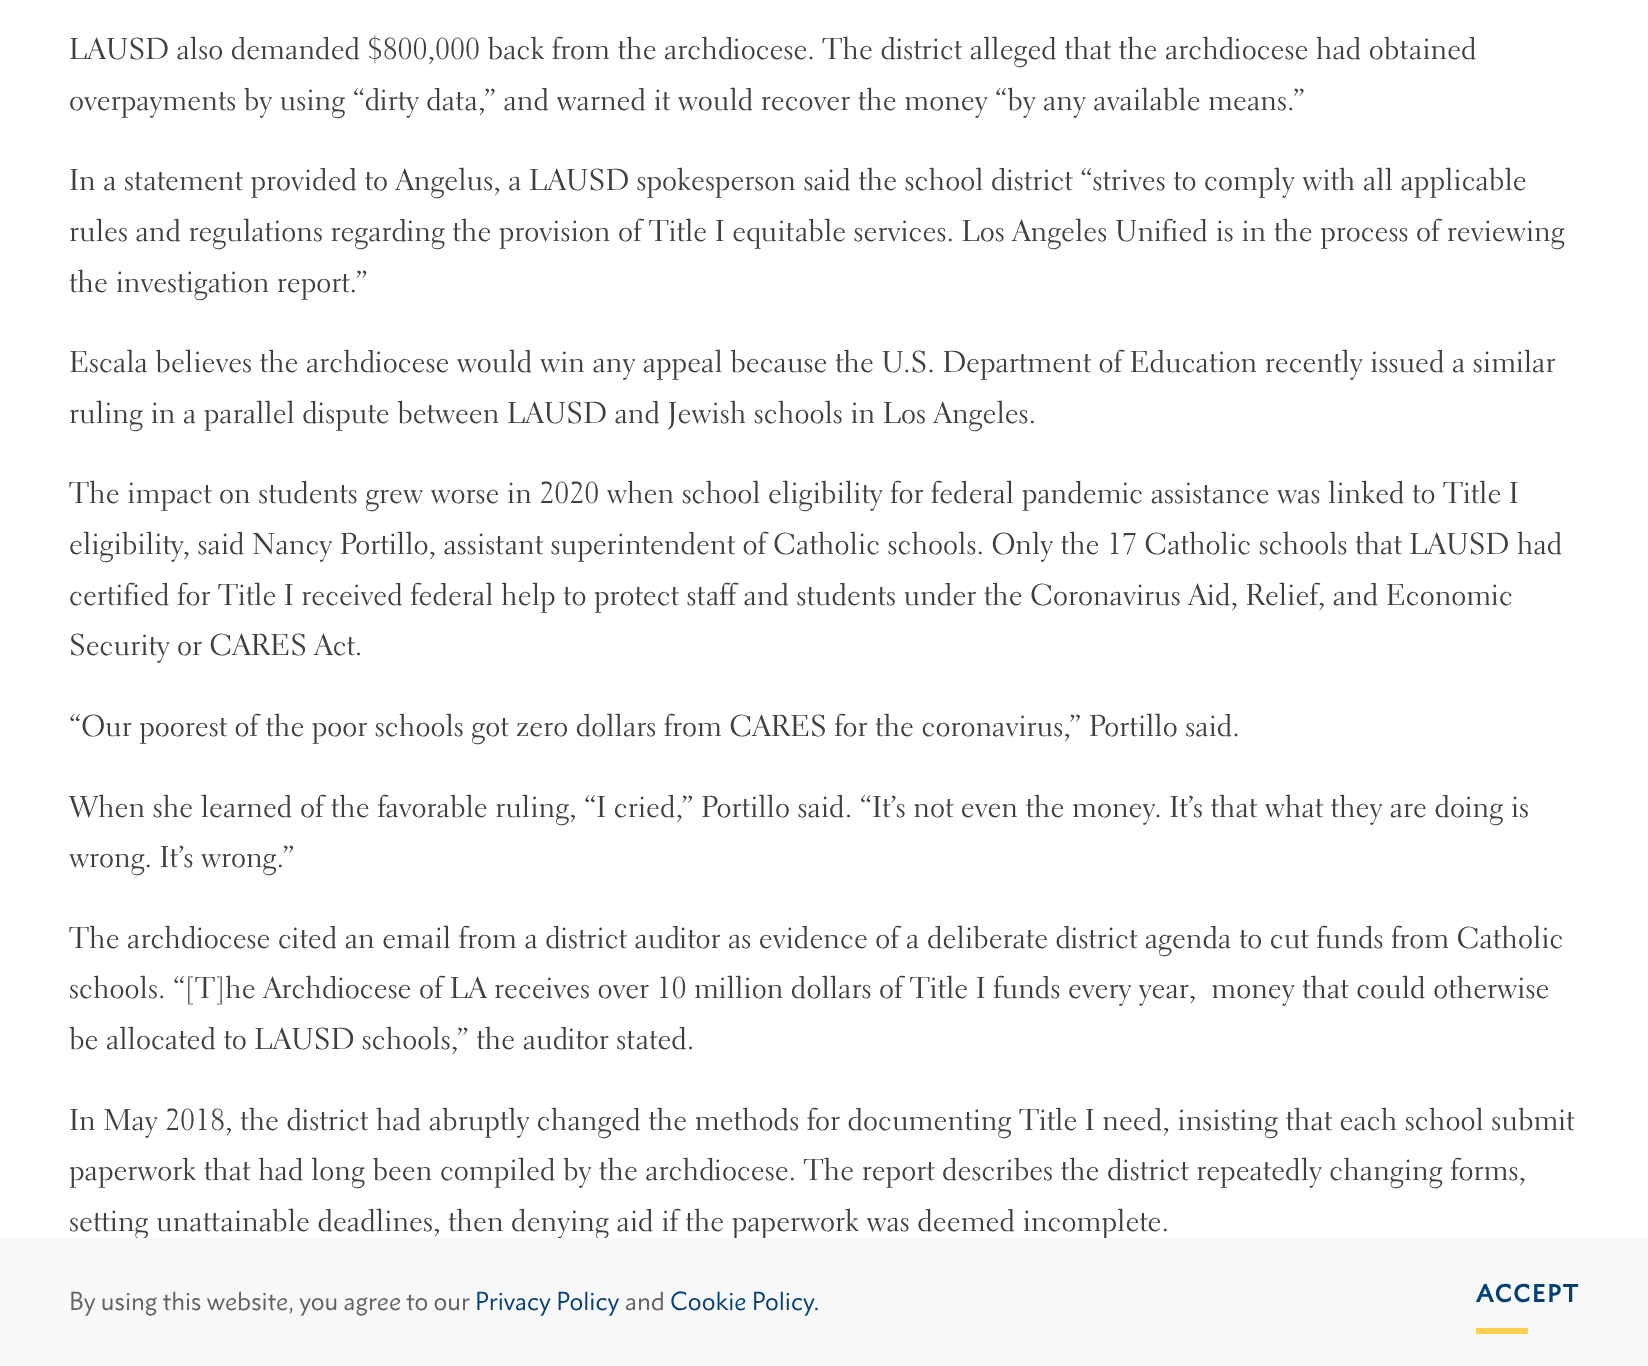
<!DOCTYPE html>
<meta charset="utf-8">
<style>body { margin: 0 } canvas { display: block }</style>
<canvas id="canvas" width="1648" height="1366"></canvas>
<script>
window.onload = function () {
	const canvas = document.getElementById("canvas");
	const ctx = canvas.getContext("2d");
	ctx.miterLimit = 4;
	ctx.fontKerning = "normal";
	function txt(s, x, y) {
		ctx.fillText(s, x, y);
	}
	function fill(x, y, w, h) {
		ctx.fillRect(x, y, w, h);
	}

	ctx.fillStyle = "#FFFFFF";
	fill(0, 0, 1648, 1366);
	ctx.font = "30px 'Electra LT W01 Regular'";
	ctx.fillStyle = "#404040";
	txt("LAUSD also demanded $800,000 back from the archdiocese. The district alleged that the archdiocese had obtained", 69, 59);
	txt("overpayments by using “dirty data,” and warned it would recover the money “by any available means.”", 69, 110);
	txt("In a statement provided to Angelus, a LAUSD spokesperson said the school district “strives to comply with all applicable", 69, 190);
	txt("rules and regulations regarding the provision of Title I equitable services. Los Angeles Unified is in the process of reviewing", 69, 241);
	txt("the investigation report.”", 69, 292);
	txt("Escala believes the archdiocese would win any appeal because the U.S. Department of Education recently issued a similar", 69, 372);
	txt("ruling in a parallel dispute between LAUSD and Jewish schools in Los Angeles.", 69, 423);
	txt("The impact on students grew worse in 2020 when school eligibility for federal pandemic assistance was linked to Title I", 69, 503);
	txt("eligibility, said Nancy Portillo, assistant superintendent of Catholic schools. Only the 17 Catholic schools that LAUSD had", 69, 554);
	txt("certified for Title I received federal help to protect staff and students under the Coronavirus Aid, Relief, and Economic", 69, 605);
	txt("Security or CARES Act.", 69, 655);
	txt("“Our poorest of the poor schools got zero dollars from CARES for the coronavirus,” Portillo said.", 69, 736);
	txt("When she learned of the favorable ruling, “I cried,” Portillo said. “It’s not even the money. It’s that what they are doing is", 69, 817);
	txt("wrong. It’s wrong.”", 69, 867);
	txt("The archdiocese cited an email from a district auditor as evidence of a deliberate district agenda to cut funds from Catholic", 69, 948);
	txt("schools. “[T]he Archdiocese of LA receives over 10 million dollars of Title I funds every year,  money that could otherwise", 69, 998);
	txt("be allocated to LAUSD schools,” the auditor stated.", 69, 1049);
	txt("In May 2018, the district had abruptly changed the methods for documenting Title I need, insisting that each school submit", 69, 1130);
	txt("paperwork that had long been compiled by the archdiocese. The report describes the district repeatedly changing forms,", 69, 1180);
	txt("setting unattainable deadlines, then denying aid if the paperwork was deemed incomplete.", 69, 1231);
	ctx.fillStyle = "#F8F8F8";
	fill(0, 1238, 1648, 128);
	ctx.font = "23.75px 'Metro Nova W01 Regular'";
	ctx.fillStyle = "#636267";
	txt("By using this website, you agree to our", 69, 1310);
	ctx.fillStyle = "#034078";
	txt("Privacy Policy", 475, 1310);
	ctx.fillStyle = "#636267";
	txt("and", 625, 1310);
	ctx.fillStyle = "#034078";
	txt("Cookie Policy.", 670, 1310);
	ctx.letterSpacing = "2px";
	ctx.font = "bold 22.5px 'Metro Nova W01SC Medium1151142'";
	txt("ACCEPT", 1476, 1302);
	ctx.fillStyle = "#FFD04E";
	fill(1476, 1328, 52, 6);
};
</script>
